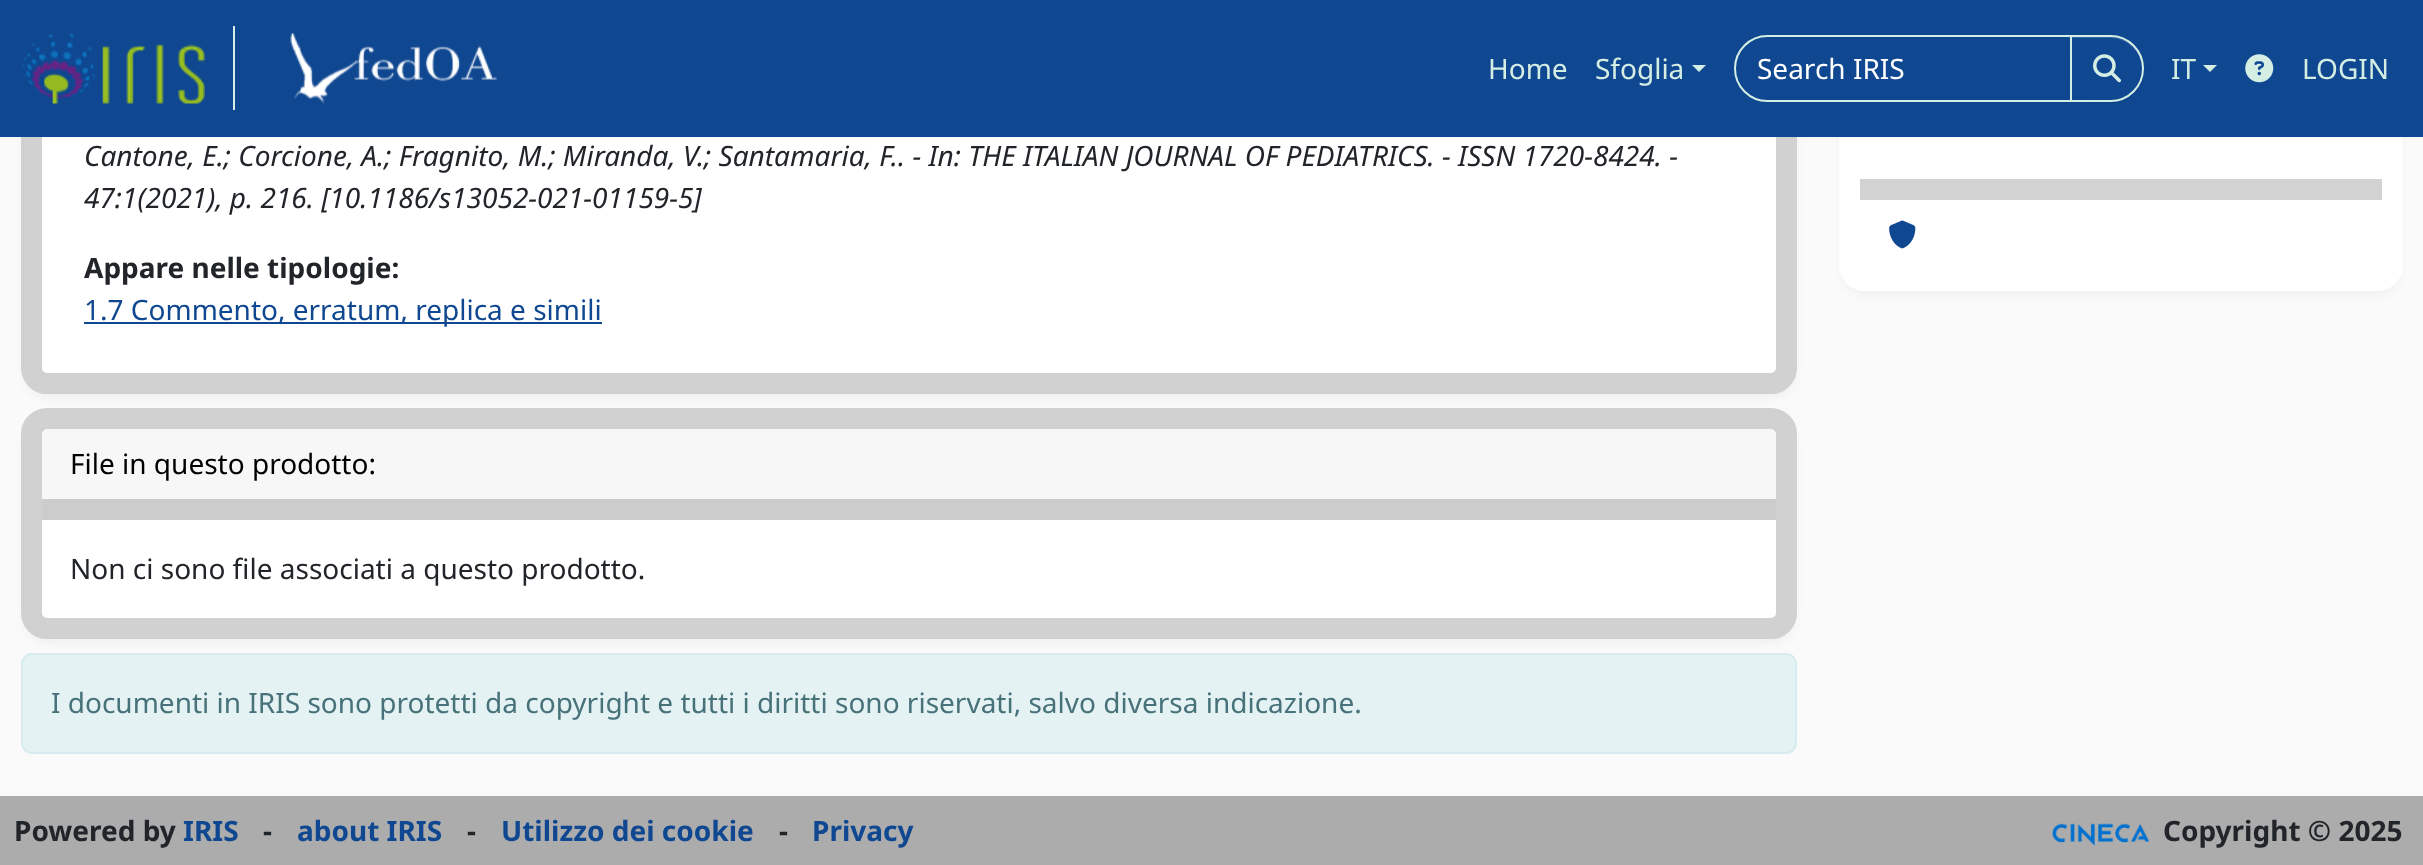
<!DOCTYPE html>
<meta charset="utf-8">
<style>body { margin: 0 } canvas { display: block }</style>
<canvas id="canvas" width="2423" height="865"></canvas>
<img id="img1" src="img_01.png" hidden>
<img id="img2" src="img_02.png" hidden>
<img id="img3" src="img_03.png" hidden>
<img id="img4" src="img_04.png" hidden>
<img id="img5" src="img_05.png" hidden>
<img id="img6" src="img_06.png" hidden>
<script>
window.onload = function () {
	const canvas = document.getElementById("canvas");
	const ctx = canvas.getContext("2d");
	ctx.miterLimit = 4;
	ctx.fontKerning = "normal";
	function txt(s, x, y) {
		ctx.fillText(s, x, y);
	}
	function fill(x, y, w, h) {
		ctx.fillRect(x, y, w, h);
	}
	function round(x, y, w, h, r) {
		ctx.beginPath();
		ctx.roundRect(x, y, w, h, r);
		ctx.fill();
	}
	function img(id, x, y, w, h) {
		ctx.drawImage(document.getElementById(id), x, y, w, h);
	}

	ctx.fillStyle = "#FBFAFA";
	fill(0, 0, 2423, 865);
	ctx.fillStyle = "#EEEEEE";
	ctx.filter = "blur(5px)";
	ctx.beginPath();
	ctx.roundRect(25, -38, 1769, 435, 23);
	ctx.fill();
	ctx.filter = "none";
	ctx.fillStyle = "#FFFFFF";
	round(21, -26, 1776, 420, 26);
	ctx.beginPath();
	ctx.roundRect(31.5, -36.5, 1755, 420, 15.5);
	ctx.strokeStyle = "rgba(0, 0, 0, 0.18)";
	ctx.lineWidth = 21;
	ctx.stroke();
	ctx.fillStyle = "#EEEEEE";
	ctx.filter = "blur(5px)";
	ctx.beginPath();
	ctx.roundRect(1843, 84, 556, 210, 23);
	ctx.fill();
	ctx.filter = "none";
	ctx.fillStyle = "#FFFFFF";
	ctx.beginPath();
	ctx.roundRect(1849.5, 84.5, 543, 196, 15.5);
	ctx.fill();
	ctx.strokeStyle = "#FFFFFF";
	ctx.stroke();
	ctx.fillStyle = "#0F4791";
	fill(0, 0, 2423, 137);
	ctx.fillStyle = "#D5EEE4";
	fill(233, 26, 2, 84);
	img("img1", 22, 33, 183, 71);
	img("img2", 290, 33, 207, 71);
	ctx.beginPath();
	ctx.moveTo(1692, 65);
	ctx.lineTo(1706, 65);
	ctx.lineTo(1699, 72);
	ctx.closePath();
	ctx.fill();
	ctx.beginPath();
	ctx.roundRect(1735, 36, 336, 65, [32.5, 0, 0, 32.5]);
	ctx.strokeStyle = "#D5EEE4";
	ctx.lineWidth = 2;
	ctx.stroke();
	ctx.fillStyle = "rgba(0, 0, 0, 0.07)";
	ctx.filter = "blur(1px)";
	ctx.beginPath();
	ctx.roundRect(2070, 37, 74, 66, 33);
	ctx.fill();
	ctx.filter = "none";
	ctx.fillStyle = "#0F4791";
	ctx.beginPath();
	ctx.roundRect(2070, 35, 74, 67, [0, 33.5, 33.5, 0]);
	ctx.fill();
	ctx.fillStyle = "#3363A2";
	ctx.beginPath();
	ctx.moveTo(2072, 38);
	ctx.lineTo(2110, 38);
	ctx.bezierCurveTo(2128, 38, 2142, 53, 2142, 69);
	ctx.lineTo(2142, 68);
	ctx.bezierCurveTo(2142, 51, 2128, 37, 2110, 37);
	ctx.lineTo(2072, 37);
	ctx.closePath();
	ctx.fill();
	ctx.beginPath();
	ctx.roundRect(2071, 36, 72, 65, [0, 32.5, 32.5, 0]);
	ctx.stroke();
	img("img3", 2093, 54, 28, 29);
	ctx.fillStyle = "#D5EEE4";
	ctx.beginPath();
	ctx.moveTo(2203, 65);
	ctx.lineTo(2217, 65);
	ctx.lineTo(2210, 72);
	ctx.closePath();
	ctx.fill();
	img("img4", 2245, 54, 29, 29);
	ctx.fillStyle = "#0F4791";
	fill(84, 322, 518, 2);
	ctx.fillStyle = "#EEEEEE";
	ctx.filter = "blur(5px)";
	ctx.beginPath();
	ctx.roundRect(25, 418, 1769, 224, 23);
	ctx.fill();
	ctx.filter = "none";
	ctx.fillStyle = "#FFFFFF";
	round(21, 408, 1776, 231, 26);
	ctx.beginPath();
	ctx.roundRect(31.5, 418.5, 1755, 210, 15.5);
	ctx.strokeStyle = "rgba(0, 0, 0, 0.18)";
	ctx.lineWidth = 21;
	ctx.stroke();
	ctx.fillStyle = "rgba(0, 0, 0, 0.03)";
	fill(42, 429, 1734, 70);
	ctx.fillStyle = "#CCCCCC";
	fill(42, 499, 1734, 21);
	ctx.fillStyle = "#E4F2F4";
	ctx.beginPath();
	ctx.roundRect(22, 654, 1774, 99, 10);
	ctx.fill();
	ctx.strokeStyle = "#D6ECEF";
	ctx.lineWidth = 2;
	ctx.stroke();
	ctx.fillStyle = "#D2D2D2";
	fill(1860, 179, 522, 21);
	img("img5", 1889, 220, 27, 29);
	ctx.fillStyle = "#ACACAC";
	fill(0, 796, 2423, 69);
	img("img6", 2052, 823, 97, 23);
	ctx.font = "28px Noto Sans";
	ctx.fillStyle = "#D5EEE4";
	txt("Home", 1488, 79);
	txt("Sfoglia", 1595, 79);
	ctx.fillStyle = "#FFFFFF";
	txt("Search IRIS", 1757, 79);
	ctx.fillStyle = "#D5EEE4";
	txt("IT", 2171, 79);
	txt("LOGIN", 2302, 79);
	ctx.font = "italic 28px Noto Sans";
	ctx.fillStyle = "#212529";
	txt("Cantone, E.; Corcione, A.; Fragnito, M.; Miranda, V.; Santamaria, F.. - In: THE ITALIAN JOURNAL OF PEDIATRICS. - ISSN 1720-8424. -", 84, 166);
	txt("47:1(2021), p. 216. [10.1186/s13052-021-01159-5]", 84, 208);
	ctx.font = "bold 28px Noto Sans";
	txt("Appare nelle tipologie:", 84, 278);
	ctx.font = "28px Noto Sans";
	ctx.fillStyle = "#0F4791";
	txt("1.7 Commento, erratum, replica e simili", 84, 320);
	ctx.fillStyle = "#000000";
	txt("File in questo prodotto:", 70, 474);
	ctx.fillStyle = "#212529";
	txt("Non ci sono file associati a questo prodotto.", 70, 579);
	ctx.fillStyle = "#477279";
	txt("I documenti in IRIS sono protetti da copyright e tutti i diritti sono riservati, salvo diversa indicazione.", 51, 713);
	ctx.font = "bold 28px Noto Sans";
	ctx.fillStyle = "#212529";
	txt("Powered by", 14, 841);
	ctx.fillStyle = "#0F4791";
	txt("IRIS", 183, 841);
	ctx.fillStyle = "#212529";
	txt("-", 263, 841);
	ctx.fillStyle = "#0F4791";
	txt("about IRIS", 297, 841);
	ctx.fillStyle = "#212529";
	txt("-", 467, 841);
	ctx.fillStyle = "#0F4791";
	txt("Utilizzo dei cookie", 501, 841);
	ctx.fillStyle = "#212529";
	txt("-", 779, 841);
	ctx.fillStyle = "#0F4791";
	txt("Privacy", 812, 841);
	ctx.fillStyle = "#212529";
	txt("Copyright © 2025", 2163, 841);
};
</script>
